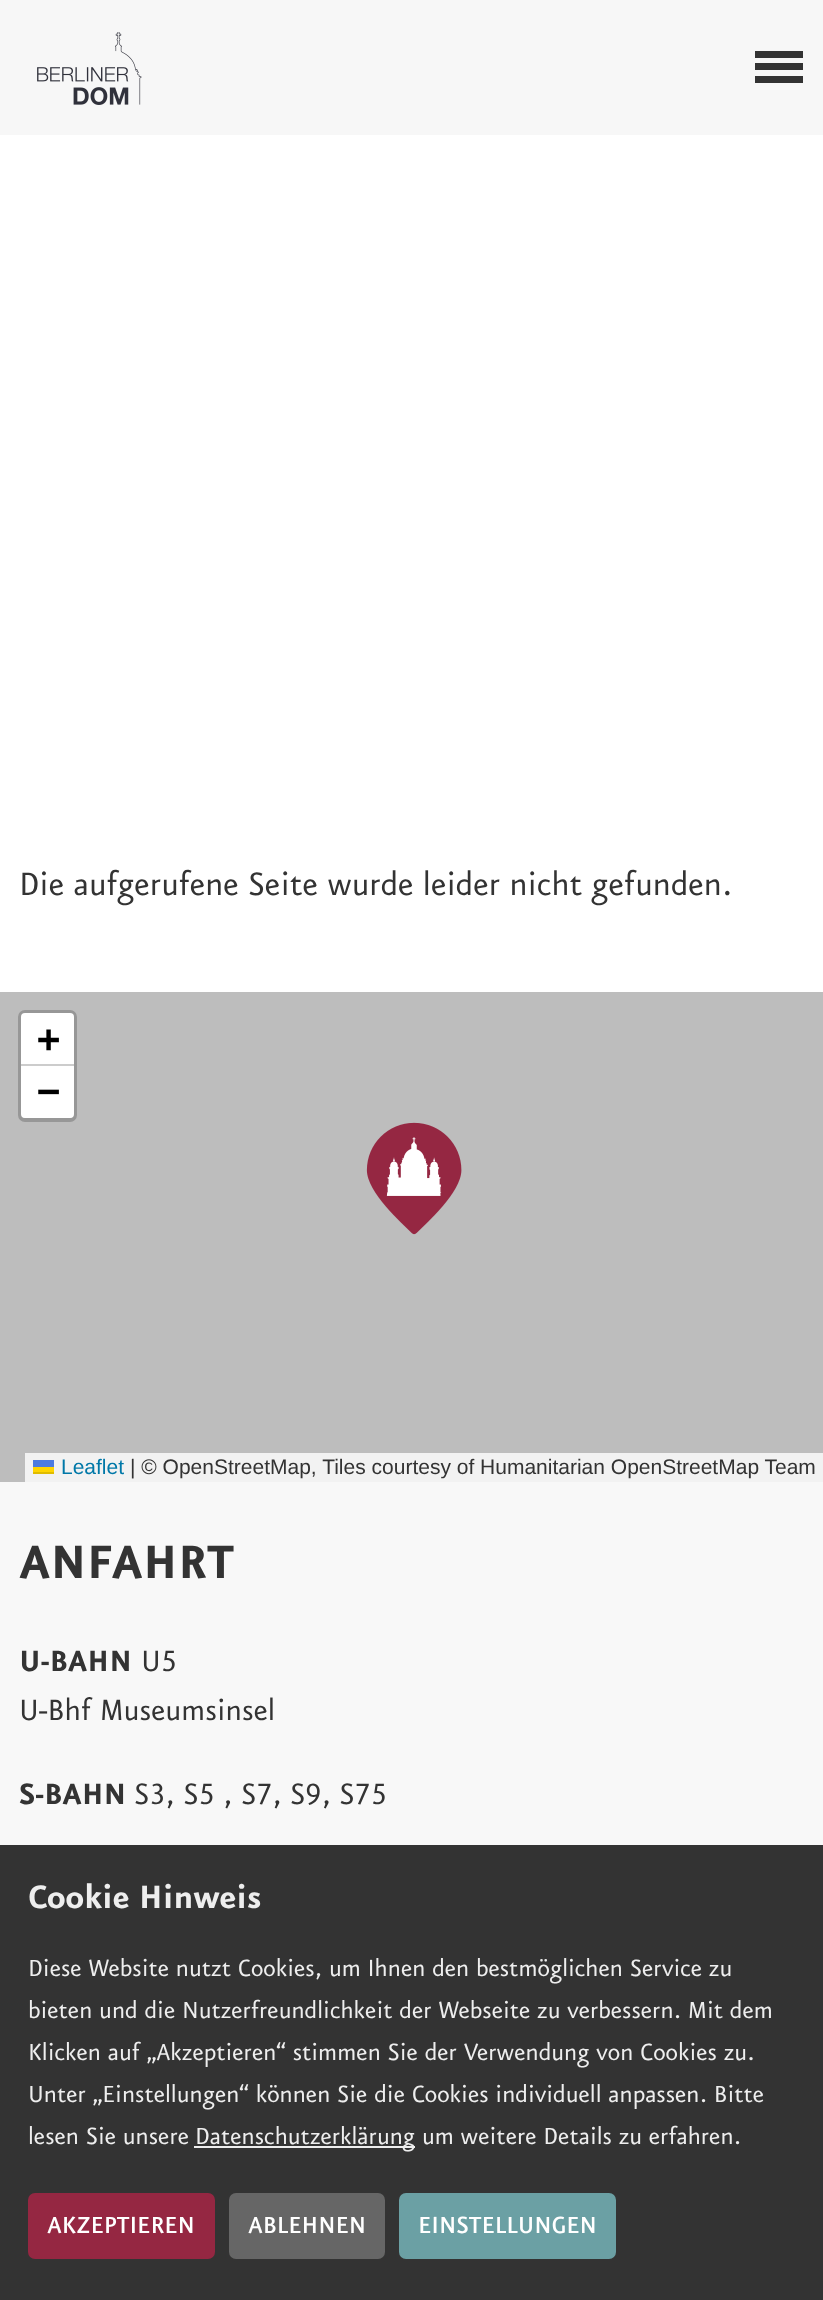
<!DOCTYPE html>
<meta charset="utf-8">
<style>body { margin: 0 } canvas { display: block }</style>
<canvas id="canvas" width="823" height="2300"></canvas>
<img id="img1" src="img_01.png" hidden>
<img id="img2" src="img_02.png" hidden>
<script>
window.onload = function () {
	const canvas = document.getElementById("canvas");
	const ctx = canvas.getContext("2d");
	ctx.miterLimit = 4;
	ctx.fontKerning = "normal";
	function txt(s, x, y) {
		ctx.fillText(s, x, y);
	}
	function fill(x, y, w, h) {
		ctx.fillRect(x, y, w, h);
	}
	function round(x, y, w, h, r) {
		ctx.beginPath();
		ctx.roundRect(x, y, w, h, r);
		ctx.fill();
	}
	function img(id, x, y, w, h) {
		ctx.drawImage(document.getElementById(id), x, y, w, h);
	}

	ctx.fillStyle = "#FFFFFF";
	fill(0, 0, 823, 2300);
	ctx.fillStyle = "#F7F7F7";
	fill(0, 0, 823, 135);
	img("img1", 37, 32, 105, 73);
	ctx.fillStyle = "#333333";
	ctx.beginPath();
	ctx.moveTo(755, 51);
	ctx.lineTo(803, 51);
	ctx.lineTo(803, 58);
	ctx.lineTo(755, 58);
	ctx.closePath();
	ctx.moveTo(755, 63);
	ctx.lineTo(803, 63);
	ctx.lineTo(803, 70);
	ctx.lineTo(755, 70);
	ctx.closePath();
	ctx.moveTo(755, 76);
	ctx.lineTo(803, 76);
	ctx.lineTo(803, 83);
	ctx.lineTo(755, 83);
	ctx.closePath();
	ctx.fill();
	ctx.fillStyle = "#BDBDBD";
	fill(0, 992, 823, 490);
	ctx.beginPath();
	ctx.roundRect(20, 1012, 55, 108, 5);
	ctx.strokeStyle = "#979797";
	ctx.lineWidth = 4;
	ctx.stroke();
	ctx.fillStyle = "#FFFFFF";
	ctx.beginPath();
	ctx.roundRect(21, 1013, 53, 53, [4, 4, 0, 0]);
	ctx.fill();
	ctx.fillStyle = "#CCCCCC";
	fill(21, 1064, 53, 2);
	ctx.fillStyle = "#FFFFFF";
	ctx.beginPath();
	ctx.roundRect(21, 1066, 53, 52, [0, 0, 4, 4]);
	ctx.fill();
	ctx.fillStyle = "#F2F2F2";
	fill(25, 1453, 798, 29);
	ctx.fillStyle = "#4C7BE1";
	fill(33, 1460, 21, 7);
	ctx.fillStyle = "#FFD500";
	fill(33, 1467, 21, 5);
	ctx.fillStyle = "#E0BC00";
	fill(33, 1472, 21, 2);
	img("img2", 366, 1122, 96, 113);
	ctx.fillStyle = "#F8F8F8";
	fill(0, 1482, 823, 363);
	ctx.fillStyle = "#333333";
	fill(0, 1845, 823, 455);
	ctx.fillStyle = "#EEEEEE";
	fill(194, 2146, 221, 2);
	ctx.fillStyle = "#952742";
	round(28, 2193, 187, 66, 7);
	ctx.fillStyle = "#666666";
	round(229, 2193, 156, 66, 7);
	ctx.fillStyle = "#6BA0A4";
	round(399, 2193, 217, 66, 7);
	ctx.font = "38.5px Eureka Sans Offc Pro";
	ctx.fillStyle = "#333333";
	txt("Die aufgerufene Seite wurde leider nicht gefunden.", 19, 895);
	ctx.font = "bold 38.5px DejaVu Sans Mono";
	ctx.fillStyle = "#000000";
	txt("+", 37, 1052);
	txt("−", 37, 1104);
	ctx.font = "21px Liberation Sans";
	ctx.fillStyle = "#0078A8";
	txt("Leaflet", 61, 1474);
	ctx.fillStyle = "#333333";
	txt("| © OpenStreetMap, Tiles courtesy of Humanitarian OpenStreetMap Team", 130, 1474);
	ctx.font = "bold 56px Eureka Sans Offc Pro";
	txt("ANFAHRT", 19, 1578);
	ctx.font = "bold 35px Eureka Sans Offc Pro";
	txt("U-BAHN", 19, 1671);
	ctx.font = "35px Eureka Sans Offc Pro";
	txt("U5", 141, 1671);
	txt("U-Bhf Museumsinsel", 19, 1720);
	ctx.font = "bold 35px Eureka Sans Offc Pro";
	txt("S-BAHN", 19, 1804);
	ctx.font = "35px Eureka Sans Offc Pro";
	txt("S3, S5 , S7, S9, S75", 134, 1804);
	ctx.font = "bold 38.5px Eureka Sans Offc Pro";
	ctx.fillStyle = "#EEEEEE";
	txt("Cookie Hinweis", 28, 1908);
	ctx.font = "28px Eureka Sans Offc Pro";
	txt("Diese Website nutzt Cookies, um Ihnen den bestmöglichen Service zu", 28, 1976);
	txt("bieten und die Nutzerfreundlichkeit der Webseite zu verbessern. Mit dem", 28, 2018);
	txt("Klicken auf „Akzeptieren“ stimmen Sie der Verwendung von Cookies zu.", 28, 2060);
	txt("Unter „Einstellungen“ können Sie die Cookies individuell anpassen. Bitte", 28, 2102);
	txt("lesen Sie unsere", 28, 2144);
	txt("Datenschutzerklärung um weitere Details zu erfahren.", 195, 2144);
	ctx.font = "500 28px Eureka Sans Offc Pro";
	ctx.fillStyle = "#FFFFFF";
	txt("AKZEPTIEREN", 47, 2233);
	txt("ABLEHNEN", 248, 2233);
	txt("EINSTELLUNGEN", 418, 2233);
};
</script>
